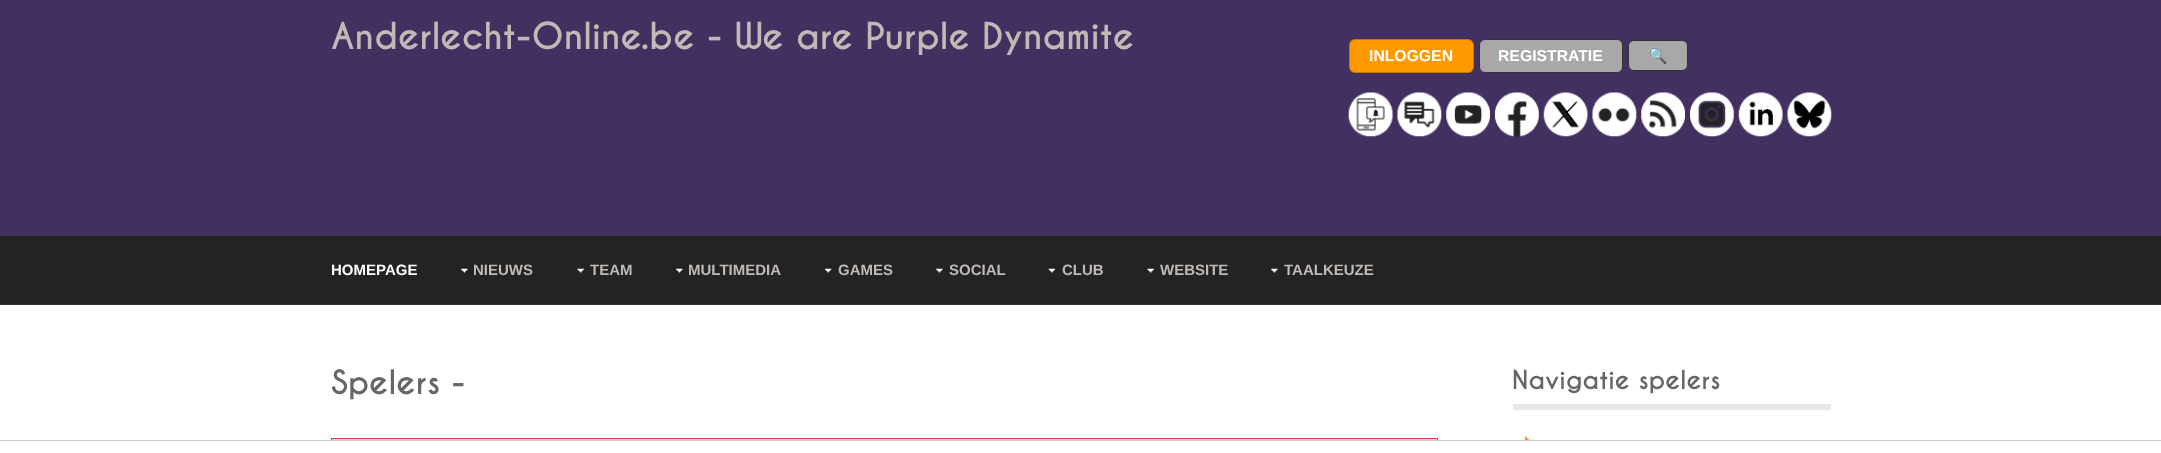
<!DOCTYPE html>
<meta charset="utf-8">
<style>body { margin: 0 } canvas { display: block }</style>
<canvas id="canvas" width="2161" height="453"></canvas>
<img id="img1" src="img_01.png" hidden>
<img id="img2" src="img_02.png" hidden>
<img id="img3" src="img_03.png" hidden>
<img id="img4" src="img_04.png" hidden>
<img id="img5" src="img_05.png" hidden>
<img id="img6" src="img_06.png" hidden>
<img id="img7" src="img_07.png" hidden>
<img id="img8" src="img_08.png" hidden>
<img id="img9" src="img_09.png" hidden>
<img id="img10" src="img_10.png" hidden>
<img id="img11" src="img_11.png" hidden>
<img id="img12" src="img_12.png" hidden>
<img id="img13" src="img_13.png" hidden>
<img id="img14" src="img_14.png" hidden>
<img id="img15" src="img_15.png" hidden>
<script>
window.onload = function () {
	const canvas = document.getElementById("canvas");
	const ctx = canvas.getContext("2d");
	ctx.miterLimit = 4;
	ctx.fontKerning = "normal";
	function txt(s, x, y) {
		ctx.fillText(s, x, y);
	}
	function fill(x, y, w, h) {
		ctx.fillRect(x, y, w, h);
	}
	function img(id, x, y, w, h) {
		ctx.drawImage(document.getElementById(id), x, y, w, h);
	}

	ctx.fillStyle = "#232323";
	fill(0, 0, 2161, 453);
	ctx.fillStyle = "#423060";
	fill(0, 0, 2161, 236);
	ctx.fillStyle = "#FF9900";
	ctx.beginPath();
	ctx.roundRect(1349.5, 39.5, 124, 33, 5.5);
	ctx.fill();
	ctx.strokeStyle = "#CC7500";
	ctx.stroke();
	ctx.fillStyle = "#A8A8A8";
	ctx.beginPath();
	ctx.roundRect(1479.5, 39.5, 143, 33, 5.5);
	ctx.fill();
	ctx.strokeStyle = "#333333";
	ctx.stroke();
	ctx.beginPath();
	ctx.roundRect(1628.5, 40.5, 59, 30, 5.5);
	ctx.fill();
	ctx.stroke();
	img("img1", 1348, 92, 45, 45);
	img("img2", 1397, 92, 45, 45);
	img("img3", 1446, 92, 44, 45);
	img("img4", 1495, 92, 44, 45);
	img("img5", 1543, 92, 45, 45);
	img("img6", 1592, 92, 45, 45);
	img("img7", 1641, 92, 44, 45);
	img("img8", 1690, 92, 44, 45);
	img("img9", 1738, 92, 45, 45);
	img("img10", 1787, 92, 45, 45);
	ctx.fillStyle = "#333333";
	fill(0, 304, 2161, 1);
	img("img11", 461, 268, 7, 5);
	img("img12", 577, 268, 7, 5);
	img("img11", 676, 268, 7, 5);
	img("img13", 825, 268, 7, 5);
	img("img11", 936, 268, 7, 5);
	img("img14", 1048, 268, 7, 5);
	img("img12", 1147, 268, 7, 5);
	img("img11", 1271, 268, 7, 5);
	ctx.fillStyle = "#FFFFFF";
	fill(0, 305, 2161, 135);
	ctx.fillStyle = "#F3CBCC";
	fill(332, 439, 1105, 1);
	ctx.strokeStyle = "#D54346";
	ctx.strokeRect(331.5, 438.5, 1106, 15);
	ctx.fillStyle = "#E8E8E8";
	fill(1513, 404, 318, 6);
	img("img15", 1525, 436, 4, 4);
	ctx.fillStyle = "#FFFFFF";
	fill(0, 441, 2161, 12);
	ctx.fillStyle = "#CCCCCC";
	fill(0, 440, 2161, 1);
	ctx.font = "bold 35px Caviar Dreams";
	ctx.fillStyle = "#C0BAB6";
	txt("Anderlecht-Online.be - We are Purple Dynamite", 331, 49);
	ctx.font = "bold 15.75px Liberation Sans";
	ctx.fillStyle = "#FFFFFF";
	txt("INLOGGEN", 1369, 61);
	txt("REGISTRATIE", 1498, 61);
	ctx.font = "bold 15.75px Noto Color Emoji";
	txt("🔍", 1648, 61);
	ctx.font = "bold 15px Liberation Sans";
	txt("HOMEPAGE", 331, 275);
	ctx.fillStyle = "#C0BAB6";
	txt("NIEUWS", 473, 275);
	txt("TEAM", 590, 275);
	txt("MULTIMEDIA", 688, 275);
	txt("GAMES", 838, 275);
	txt("SOCIAL", 949, 275);
	txt("CLUB", 1062, 275);
	txt("WEBSITE", 1160, 275);
	txt("TAALKEUZE", 1284, 275);
	ctx.font = "bold 31.5px Caviar Dreams";
	ctx.fillStyle = "#666666";
	txt("Spelers -", 331, 394);
	ctx.font = "bold 24.5px Caviar Dreams";
	txt("Navigatie spelers", 1512, 389);
};
</script>
